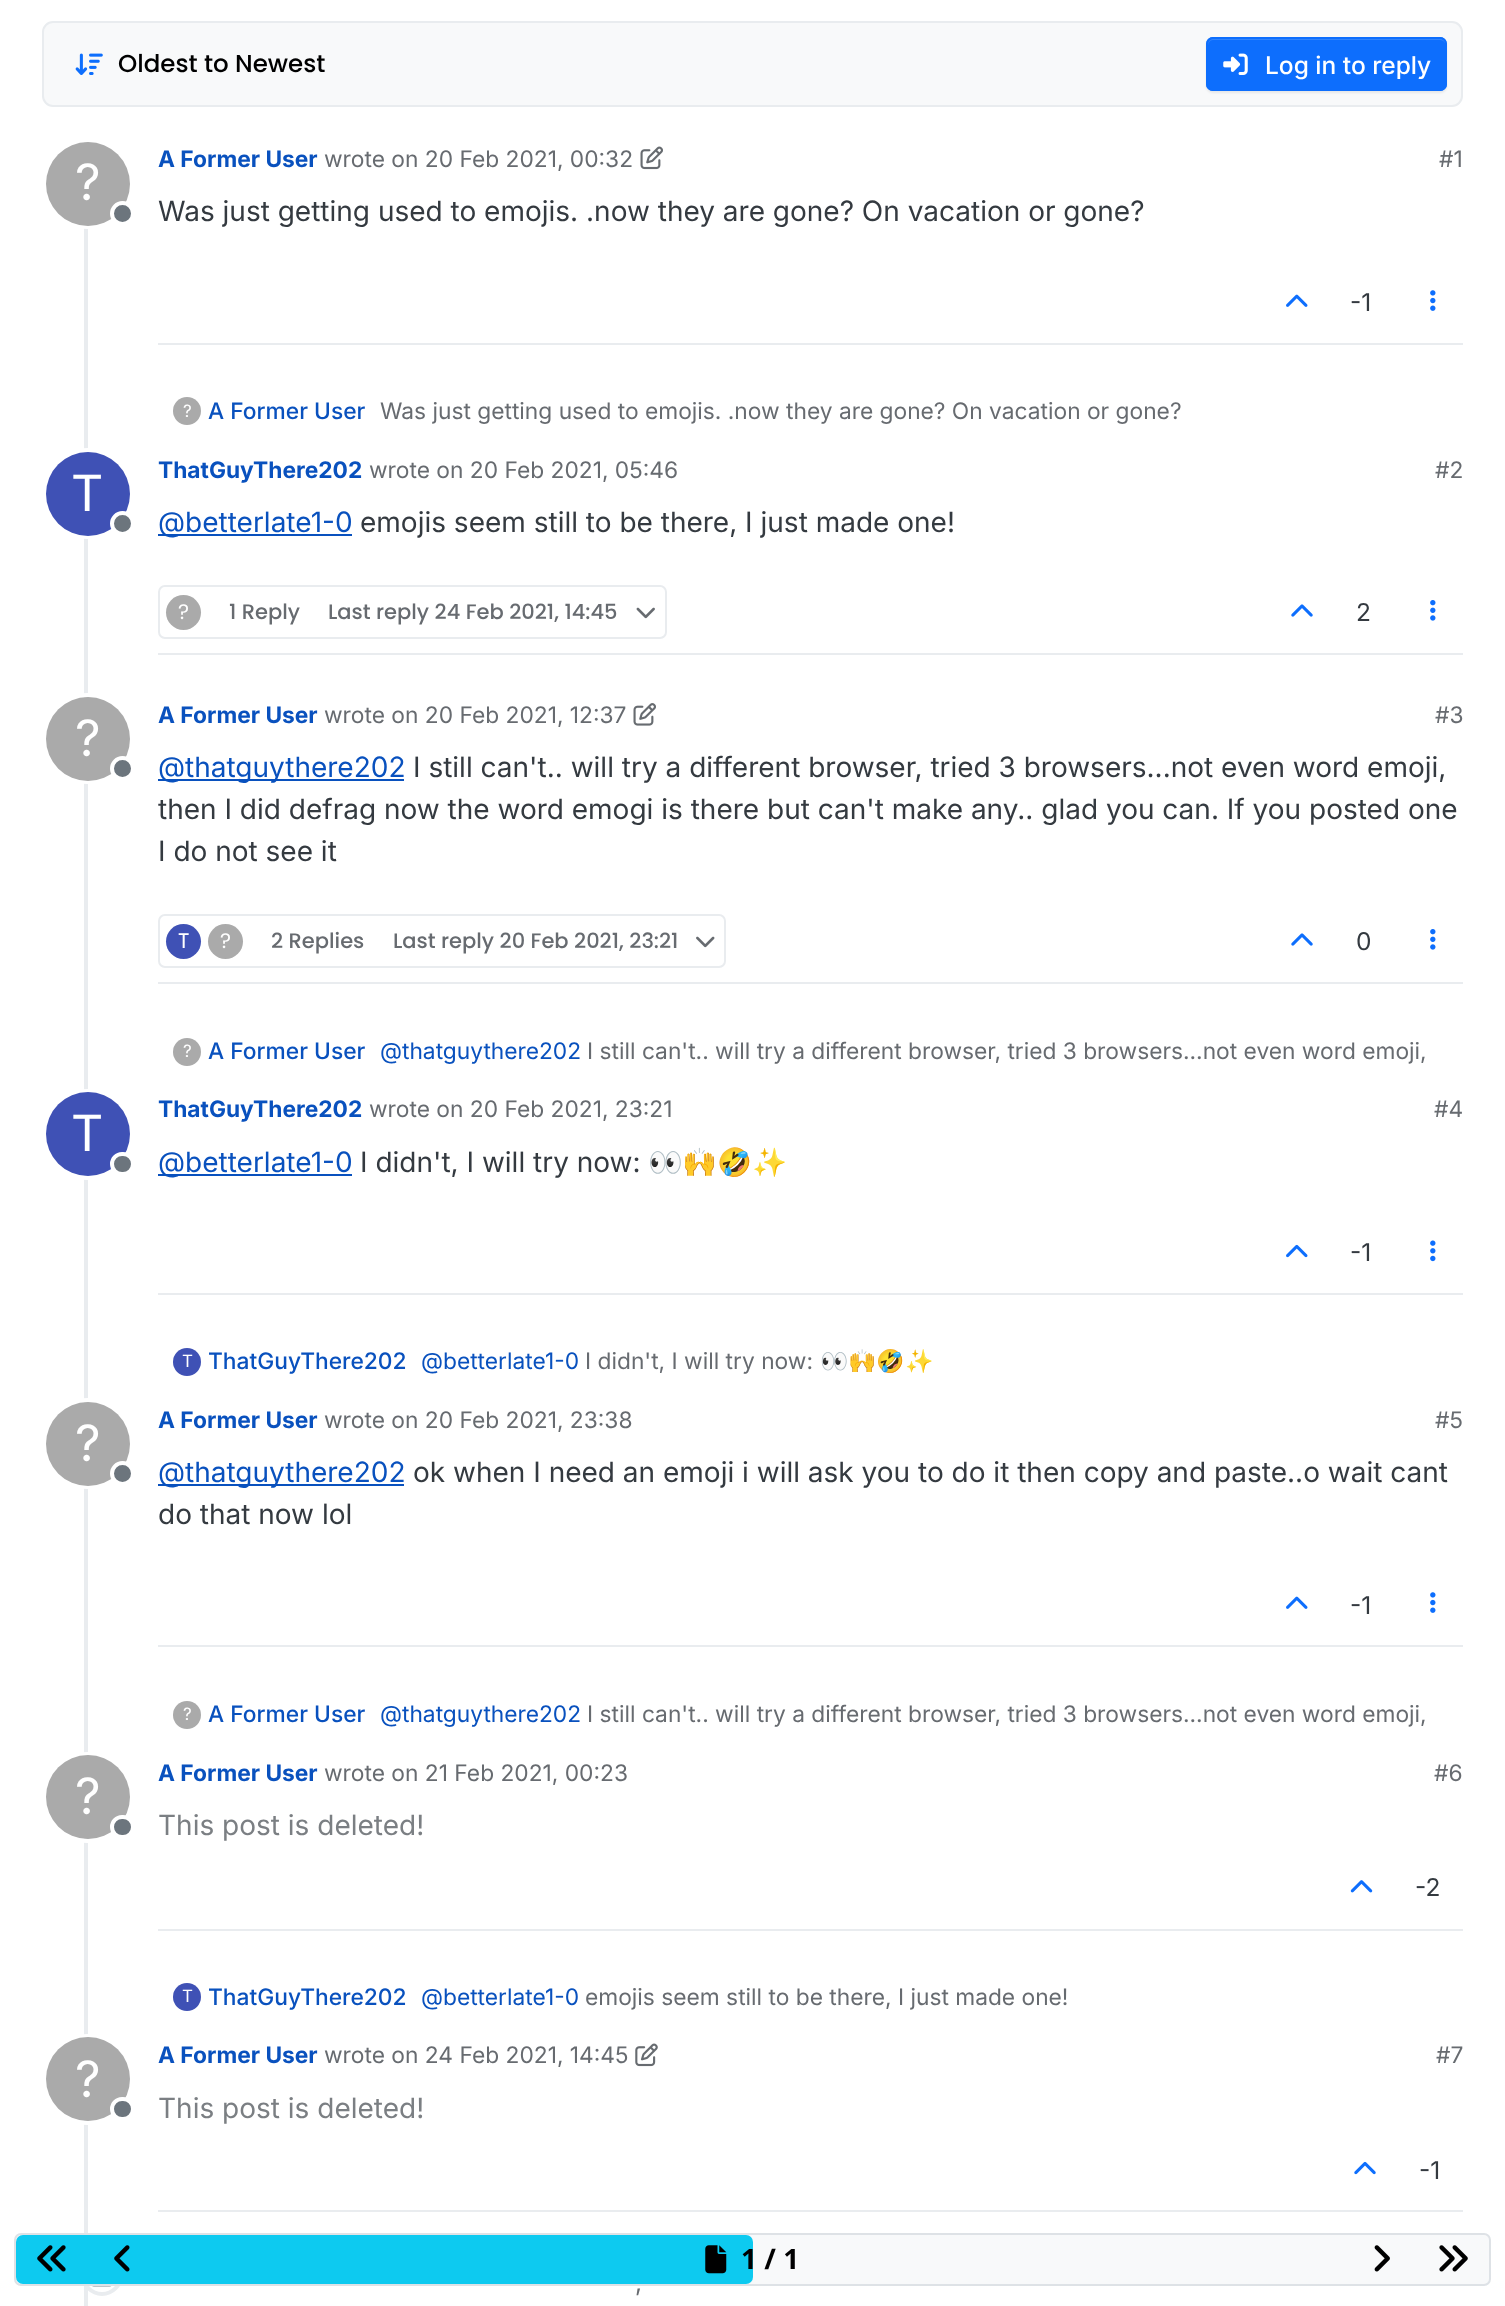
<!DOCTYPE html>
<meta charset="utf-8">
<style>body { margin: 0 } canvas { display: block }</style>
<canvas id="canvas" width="1505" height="2306"></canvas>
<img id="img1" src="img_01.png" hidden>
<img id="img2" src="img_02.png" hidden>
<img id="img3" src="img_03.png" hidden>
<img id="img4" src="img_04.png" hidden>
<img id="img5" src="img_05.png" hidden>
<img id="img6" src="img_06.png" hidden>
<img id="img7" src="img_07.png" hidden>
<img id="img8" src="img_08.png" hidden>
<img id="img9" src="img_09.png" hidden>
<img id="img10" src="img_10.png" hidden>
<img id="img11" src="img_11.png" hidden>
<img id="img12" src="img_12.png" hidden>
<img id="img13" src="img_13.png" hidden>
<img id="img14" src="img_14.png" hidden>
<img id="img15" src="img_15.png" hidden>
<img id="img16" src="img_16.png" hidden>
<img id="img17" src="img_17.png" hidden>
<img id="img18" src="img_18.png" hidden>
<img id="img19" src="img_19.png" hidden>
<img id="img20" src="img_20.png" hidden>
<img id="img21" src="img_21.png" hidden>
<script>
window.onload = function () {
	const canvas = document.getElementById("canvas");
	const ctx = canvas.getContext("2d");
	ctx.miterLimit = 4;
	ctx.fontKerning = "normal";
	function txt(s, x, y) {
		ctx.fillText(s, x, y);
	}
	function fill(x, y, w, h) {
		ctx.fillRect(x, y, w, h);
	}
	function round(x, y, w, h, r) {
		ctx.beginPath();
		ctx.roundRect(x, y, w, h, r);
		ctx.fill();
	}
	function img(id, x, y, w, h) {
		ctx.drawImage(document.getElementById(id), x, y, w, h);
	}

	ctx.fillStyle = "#FFFFFF";
	fill(0, 0, 1505, 2306);
	ctx.fillStyle = "#F8F9FA";
	ctx.beginPath();
	ctx.roundRect(43, 22, 1419, 84, 10);
	ctx.fill();
	ctx.strokeStyle = "#E9ECEF";
	ctx.lineWidth = 2;
	ctx.stroke();
	img("img1", 75, 53, 28, 22);
	ctx.fillStyle = "rgba(0, 0, 0, 0.07)";
	ctx.filter = "blur(1px)";
	ctx.beginPath();
	ctx.roundRect(1206, 39, 241, 54, 7);
	ctx.fill();
	ctx.filter = "none";
	ctx.fillStyle = "#0D6EFD";
	round(1206, 37, 241, 54, 7);
	ctx.fillStyle = "#3184FD";
	ctx.beginPath();
	ctx.moveTo(1213, 40);
	ctx.lineTo(1440, 40);
	ctx.bezierCurveTo(1443, 40, 1446, 43, 1446, 46);
	ctx.bezierCurveTo(1446, 43, 1446, 40, 1442, 39);
	ctx.lineTo(1212, 39);
	ctx.bezierCurveTo(1208, 40, 1208, 43, 1208, 46);
	ctx.bezierCurveTo(1208, 43, 1210, 40, 1213, 40);
	ctx.closePath();
	ctx.fill();
	ctx.beginPath();
	ctx.roundRect(1207, 38, 239, 52, 6);
	ctx.strokeStyle = "#0D6EFD";
	ctx.stroke();
	img("img2", 1223, 53, 25, 22);
	ctx.fillStyle = "#E9ECEF";
	fill(84, 142, 4, 2164);
	ctx.beginPath();
	ctx.arc(87.5, 183.5, 43.5, 0, Math.PI * 2);
	ctx.strokeStyle = "#FFFFFF";
	ctx.lineWidth = 4;
	ctx.stroke();
	ctx.fillStyle = "#AAAAAA";
	ctx.beginPath();
	ctx.arc(88, 184, 42, 0, Math.PI * 2);
	ctx.fill();
	ctx.fillStyle = "#6C757D";
	ctx.beginPath();
	ctx.arc(122.5, 213.5, 10.5, 0, Math.PI * 2);
	ctx.fill();
	ctx.stroke();
	img("img3", 640, 146, 23, 24);
	ctx.fillStyle = "#E9ECEF";
	fill(158, 343, 1305, 2);
	img("img4", 1286, 294, 22, 13);
	img("img5", 1430, 290, 6, 21);
	ctx.fillStyle = "#AAAAAA";
	ctx.beginPath();
	ctx.arc(187, 411, 14, 0, Math.PI * 2);
	ctx.fill();
	ctx.beginPath();
	ctx.arc(87.5, 493.5, 43.5, 0, Math.PI * 2);
	ctx.stroke();
	ctx.fillStyle = "#3F51B5";
	ctx.beginPath();
	ctx.arc(88, 494, 42, 0, Math.PI * 2);
	ctx.fill();
	ctx.fillStyle = "#6C757D";
	ctx.beginPath();
	ctx.arc(122.5, 523.5, 10.5, 0, Math.PI * 2);
	ctx.fill();
	ctx.stroke();
	ctx.fillStyle = "#0951BE";
	fill(158, 534, 194, 2);
	ctx.fillStyle = "#E9ECEF";
	fill(158, 653, 1305, 2);
	ctx.beginPath();
	ctx.roundRect(159, 586, 507, 52, 6);
	ctx.strokeStyle = "#E9ECEF";
	ctx.lineWidth = 2;
	ctx.stroke();
	ctx.fillStyle = "#AAAAAA";
	ctx.beginPath();
	ctx.arc(183.5, 612.5, 17.5, 0, Math.PI * 2);
	ctx.fill();
	img("img6", 636, 607, 19, 12);
	img("img7", 1291, 604, 22, 13);
	img("img8", 1430, 600, 6, 21);
	ctx.beginPath();
	ctx.arc(87.5, 738.5, 43.5, 0, Math.PI * 2);
	ctx.strokeStyle = "#FFFFFF";
	ctx.lineWidth = 4;
	ctx.stroke();
	ctx.beginPath();
	ctx.arc(88, 739, 42, 0, Math.PI * 2);
	ctx.fill();
	ctx.fillStyle = "#6C757D";
	ctx.beginPath();
	ctx.arc(122.5, 768.5, 10.5, 0, Math.PI * 2);
	ctx.fill();
	ctx.stroke();
	img("img9", 633, 703, 23, 23);
	ctx.fillStyle = "#0951BE";
	fill(158, 779, 246, 2);
	ctx.fillStyle = "#E9ECEF";
	fill(158, 982, 1305, 2);
	ctx.beginPath();
	ctx.roundRect(159, 915, 566, 52, 6);
	ctx.strokeStyle = "#E9ECEF";
	ctx.lineWidth = 2;
	ctx.stroke();
	ctx.fillStyle = "#3F51B5";
	ctx.beginPath();
	ctx.arc(183.5, 941.5, 17.5, 0, Math.PI * 2);
	ctx.fill();
	ctx.fillStyle = "#AAAAAA";
	ctx.beginPath();
	ctx.arc(225.5, 941.5, 17.5, 0, Math.PI * 2);
	ctx.fill();
	img("img10", 696, 936, 19, 12);
	img("img7", 1291, 933, 22, 13);
	img("img8", 1430, 929, 6, 21);
	ctx.beginPath();
	ctx.arc(187, 1052, 14, 0, Math.PI * 2);
	ctx.fill();
	ctx.beginPath();
	ctx.arc(87.5, 1134.5, 43.5, 0, Math.PI * 2);
	ctx.strokeStyle = "#FFFFFF";
	ctx.lineWidth = 4;
	ctx.stroke();
	ctx.fillStyle = "#3F51B5";
	ctx.beginPath();
	ctx.arc(88, 1134, 42, 0, Math.PI * 2);
	ctx.fill();
	ctx.fillStyle = "#6C757D";
	ctx.beginPath();
	ctx.roundRect(112, 1154, 21, 20, 10);
	ctx.fill();
	ctx.stroke();
	ctx.fillStyle = "#0951BE";
	fill(158, 1174, 194, 2);
	ctx.fillStyle = "#E9ECEF";
	fill(158, 1293, 1305, 2);
	img("img11", 1286, 1244, 22, 14);
	img("img12", 1430, 1240, 6, 22);
	ctx.fillStyle = "#3F51B5";
	ctx.beginPath();
	ctx.arc(187, 1362, 14, 0, Math.PI * 2);
	ctx.fill();
	ctx.beginPath();
	ctx.arc(87.5, 1443.5, 43.5, 0, Math.PI * 2);
	ctx.stroke();
	ctx.fillStyle = "#AAAAAA";
	ctx.beginPath();
	ctx.arc(88, 1444, 42, 0, Math.PI * 2);
	ctx.fill();
	ctx.fillStyle = "#6C757D";
	ctx.beginPath();
	ctx.arc(122.5, 1473.5, 10.5, 0, Math.PI * 2);
	ctx.fill();
	ctx.stroke();
	ctx.fillStyle = "#0951BE";
	fill(158, 1484, 246, 2);
	ctx.fillStyle = "#E9ECEF";
	fill(158, 1645, 1305, 2);
	img("img4", 1286, 1596, 22, 13);
	img("img5", 1430, 1592, 6, 21);
	ctx.fillStyle = "#AAAAAA";
	ctx.beginPath();
	ctx.arc(187, 1715, 14, 0, Math.PI * 2);
	ctx.fill();
	ctx.beginPath();
	ctx.arc(87.5, 1797.5, 43.5, 0, Math.PI * 2);
	ctx.stroke();
	ctx.beginPath();
	ctx.arc(88, 1797, 42, 0, Math.PI * 2);
	ctx.fill();
	ctx.fillStyle = "#6C757D";
	ctx.beginPath();
	ctx.roundRect(112, 1817, 21, 20, 10);
	ctx.fill();
	ctx.stroke();
	ctx.fillStyle = "#E9ECEF";
	fill(158, 1929, 1305, 2);
	img("img13", 1350, 1880, 23, 13);
	ctx.fillStyle = "#3F51B5";
	ctx.beginPath();
	ctx.arc(187, 1997, 14, 0, Math.PI * 2);
	ctx.fill();
	ctx.beginPath();
	ctx.arc(87.5, 2079.5, 43.5, 0, Math.PI * 2);
	ctx.stroke();
	ctx.fillStyle = "#AAAAAA";
	ctx.beginPath();
	ctx.arc(88, 2079, 42, 0, Math.PI * 2);
	ctx.fill();
	ctx.fillStyle = "#6C757D";
	ctx.beginPath();
	ctx.roundRect(112, 2099, 21, 20, 10);
	ctx.fill();
	ctx.stroke();
	img("img14", 635, 2043, 23, 24);
	ctx.fillStyle = "#E9ECEF";
	fill(158, 2210, 1305, 2);
	img("img15", 1354, 2161, 22, 14);
	ctx.fillStyle = "#FFFFFF";
	ctx.beginPath();
	ctx.arc(102, 2275, 19, 0, Math.PI * 2);
	ctx.fill();
	ctx.strokeStyle = "#E9ECEF";
	ctx.stroke();
	img("img16", 92, 2286, 20, 1);
	ctx.fillStyle = "#F8F9FA";
	ctx.beginPath();
	ctx.roundRect(15, 2234, 1475, 51, 6);
	ctx.fill();
	ctx.strokeStyle = "#DEE2E6";
	ctx.lineWidth = 2;
	ctx.stroke();
	ctx.fillStyle = "#0DCAF0";
	round(16, 2235, 737, 49, 7);
	img("img17", 37, 2245, 29, 27);
	img("img18", 114, 2245, 16, 27);
	img("img19", 705, 2245, 22, 29);
	img("img20", 1374, 2245, 16, 27);
	img("img21", 1439, 2245, 29, 27);
	ctx.font = "500 24.5px Poppins";
	ctx.fillStyle = "#000000";
	txt("Oldest to Newest", 118, 72);
	ctx.font = "500 24.5px Inter";
	ctx.fillStyle = "#FFFFFF";
	txt("Log in to reply", 1265, 74);
	ctx.font = "50px Inter";
	txt("?", 75, 200);
	ctx.font = "bold 22.75px Inter";
	ctx.fillStyle = "#0951BE";
	txt("A Former User", 158, 167);
	ctx.font = "22.75px Inter";
	ctx.fillStyle = "#676B70";
	txt("wrote on 20 Feb 2021, 00:32", 324, 167);
	txt("#1", 1439, 167);
	ctx.font = "28px Inter";
	ctx.fillStyle = "#343A40";
	txt("Was just getting used to emojis. .now they are gone? On vacation or gone?", 158, 221);
	ctx.font = "24.5px Inter";
	txt("-1", 1350, 311);
	ctx.font = "17px Inter";
	ctx.fillStyle = "#FFFFFF";
	txt("?", 183, 417);
	ctx.font = "500 22.75px Inter";
	ctx.fillStyle = "#0951BE";
	txt("A Former User", 208, 419);
	ctx.font = "22.75px Inter";
	ctx.fillStyle = "#676B70";
	txt("Was just getting used to emojis. .now they are gone? On vacation or gone?", 380, 419);
	ctx.font = "50px Inter";
	ctx.fillStyle = "#FFFFFF";
	txt("T", 71, 511);
	ctx.font = "bold 22.75px Inter";
	ctx.fillStyle = "#0951BE";
	txt("ThatGuyThere202", 158, 478);
	ctx.font = "22.75px Inter";
	ctx.fillStyle = "#676B70";
	txt("wrote on 20 Feb 2021, 05:46", 369, 478);
	txt("#2", 1435, 478);
	ctx.font = "28px Inter";
	ctx.fillStyle = "#0951BE";
	txt("@betterlate1-0", 158, 532);
	ctx.fillStyle = "#343A40";
	txt("emojis seem still to be there, I just made one!", 360, 532);
	ctx.font = "21px Poppins";
	ctx.fillStyle = "#FFFFFF";
	txt("?", 178, 619);
	ctx.font = "500 21px Poppins";
	ctx.fillStyle = "#676B70";
	txt("1 Reply", 229, 619);
	txt("Last reply 24 Feb 2021, 14:45", 328, 619);
	ctx.font = "24.5px Inter";
	ctx.fillStyle = "#343A40";
	txt("2", 1356, 621);
	ctx.font = "50px Inter";
	ctx.fillStyle = "#FFFFFF";
	txt("?", 75, 756);
	ctx.font = "bold 22.75px Inter";
	ctx.fillStyle = "#0951BE";
	txt("A Former User", 158, 723);
	ctx.font = "22.75px Inter";
	ctx.fillStyle = "#676B70";
	txt("wrote on 20 Feb 2021, 12:37", 324, 723);
	txt("#3", 1435, 723);
	ctx.font = "28px Inter";
	ctx.fillStyle = "#0951BE";
	txt("@thatguythere202", 158, 777);
	ctx.fillStyle = "#343A40";
	txt("I still can't.. will try a different browser, tried 3 browsers...not even word emoji,", 413, 777);
	txt("then I did defrag now the word emogi is there but can't make any.. glad you can. If you posted one", 158, 819);
	txt("I do not see it", 158, 861);
	ctx.font = "21px Poppins";
	ctx.fillStyle = "#FFFFFF";
	txt("T", 178, 948);
	txt("?", 220, 948);
	ctx.font = "500 21px Poppins";
	ctx.fillStyle = "#676B70";
	txt("2 Replies", 271, 948);
	txt("Last reply 20 Feb 2021, 23:21", 393, 948);
	ctx.font = "24.5px Inter";
	ctx.fillStyle = "#343A40";
	txt("0", 1356, 950);
	ctx.font = "17px Inter";
	ctx.fillStyle = "#FFFFFF";
	txt("?", 183, 1057);
	ctx.font = "500 22.75px Inter";
	ctx.fillStyle = "#0951BE";
	txt("A Former User", 208, 1059);
	ctx.font = "22.75px Inter";
	txt("@thatguythere202", 380, 1059);
	ctx.fillStyle = "#676B70";
	txt("I still can't.. will try a different browser, tried 3 browsers...not even word emoji,", 587, 1059);
	ctx.font = "50px Inter";
	ctx.fillStyle = "#FFFFFF";
	txt("T", 71, 1151);
	ctx.font = "bold 22.75px Inter";
	ctx.fillStyle = "#0951BE";
	txt("ThatGuyThere202", 158, 1117);
	ctx.font = "22.75px Inter";
	ctx.fillStyle = "#676B70";
	txt("wrote on 20 Feb 2021, 23:21", 369, 1117);
	txt("#4", 1434, 1117);
	ctx.font = "28px Inter";
	ctx.fillStyle = "#0951BE";
	txt("@betterlate1-0", 158, 1172);
	ctx.fillStyle = "#343A40";
	txt("I didn't, I will try now:", 360, 1172);
	ctx.font = "28px Noto Color Emoji";
	txt("👀🙌🤣✨", 648, 1172);
	ctx.font = "24.5px Inter";
	txt("-1", 1350, 1261);
	ctx.font = "17px Inter";
	ctx.fillStyle = "#FFFFFF";
	txt("T", 182, 1367);
	ctx.font = "500 22.75px Inter";
	ctx.fillStyle = "#0951BE";
	txt("ThatGuyThere202", 208, 1369);
	ctx.font = "22.75px Inter";
	txt("@betterlate1-0", 421, 1369);
	ctx.fillStyle = "#676B70";
	txt("I didn't, I will try now:", 585, 1369);
	ctx.font = "22.75px Noto Color Emoji";
	txt("👀🙌🤣✨", 820, 1369);
	ctx.font = "50px Inter";
	ctx.fillStyle = "#FFFFFF";
	txt("?", 75, 1461);
	ctx.font = "bold 22.75px Inter";
	ctx.fillStyle = "#0951BE";
	txt("A Former User", 158, 1428);
	ctx.font = "22.75px Inter";
	ctx.fillStyle = "#676B70";
	txt("wrote on 20 Feb 2021, 23:38", 324, 1428);
	txt("#5", 1435, 1428);
	ctx.font = "28px Inter";
	ctx.fillStyle = "#0951BE";
	txt("@thatguythere202", 158, 1482);
	ctx.fillStyle = "#343A40";
	txt("ok when I need an emoji i will ask you to do it then copy and paste..o wait cant", 413, 1482);
	txt("do that now lol", 158, 1524);
	ctx.font = "24.5px Inter";
	txt("-1", 1350, 1614);
	ctx.font = "17px Inter";
	ctx.fillStyle = "#FFFFFF";
	txt("?", 183, 1720);
	ctx.font = "500 22.75px Inter";
	ctx.fillStyle = "#0951BE";
	txt("A Former User", 208, 1722);
	ctx.font = "22.75px Inter";
	txt("@thatguythere202", 380, 1722);
	ctx.fillStyle = "#676B70";
	txt("I still can't.. will try a different browser, tried 3 browsers...not even word emoji,", 587, 1722);
	ctx.font = "50px Inter";
	ctx.fillStyle = "#FFFFFF";
	txt("?", 75, 1814);
	ctx.font = "bold 22.75px Inter";
	ctx.fillStyle = "#0951BE";
	txt("A Former User", 158, 1781);
	ctx.font = "22.75px Inter";
	ctx.fillStyle = "#676B70";
	txt("wrote on 21 Feb 2021, 00:23", 324, 1781);
	txt("#6", 1434, 1781);
	ctx.font = "28px Inter";
	ctx.fillStyle = "#7B7F83";
	txt("This post is deleted!", 158, 1835);
	ctx.font = "24.5px Inter";
	ctx.fillStyle = "#343A40";
	txt("-2", 1415, 1896);
	ctx.font = "17px Inter";
	ctx.fillStyle = "#FFFFFF";
	txt("T", 182, 2002);
	ctx.font = "500 22.75px Inter";
	ctx.fillStyle = "#0951BE";
	txt("ThatGuyThere202", 208, 2005);
	ctx.font = "22.75px Inter";
	txt("@betterlate1-0", 421, 2005);
	ctx.fillStyle = "#676B70";
	txt("emojis seem still to be there, I just made one!", 585, 2005);
	ctx.font = "50px Inter";
	ctx.fillStyle = "#FFFFFF";
	txt("?", 75, 2097);
	ctx.font = "bold 22.75px Inter";
	ctx.fillStyle = "#0951BE";
	txt("A Former User", 158, 2063);
	ctx.font = "22.75px Inter";
	ctx.fillStyle = "#676B70";
	txt("wrote on 24 Feb 2021, 14:45", 324, 2063);
	txt("#7", 1436, 2063);
	ctx.font = "28px Inter";
	ctx.fillStyle = "#7B7F83";
	txt("This post is deleted!", 158, 2118);
	ctx.font = "24.5px Inter";
	ctx.fillStyle = "#343A40";
	txt("-1", 1419, 2179);
	ctx.fillStyle = "#676B70";
	txt(",", 635, 2291);
	ctx.font = "bold 28px Noto Sans";
	ctx.fillStyle = "#000000";
	txt("1 / 1", 741, 2269);
};
</script>
